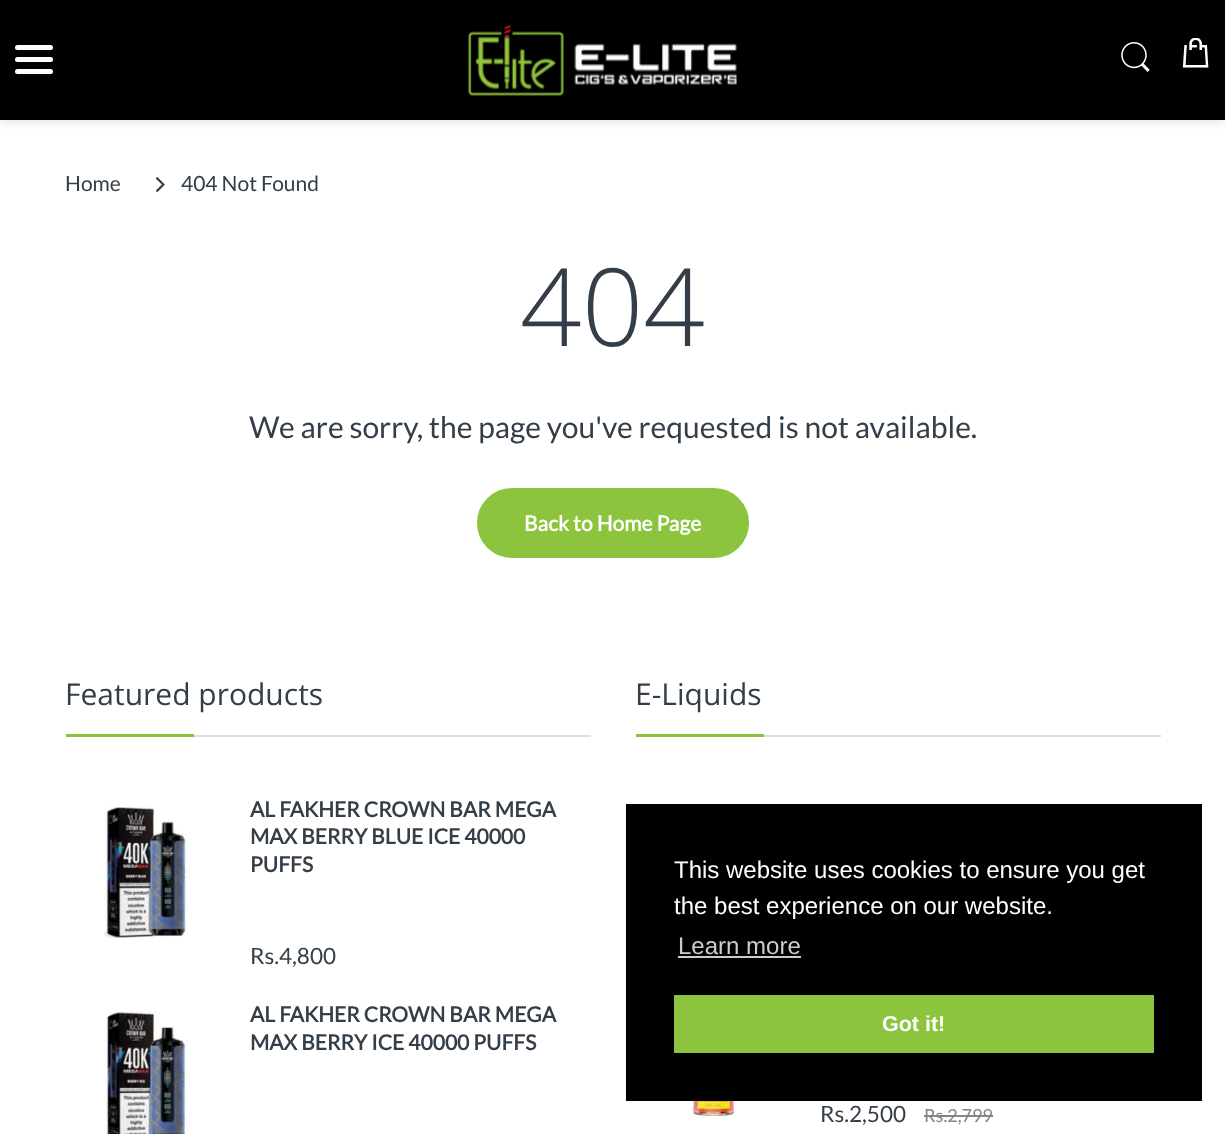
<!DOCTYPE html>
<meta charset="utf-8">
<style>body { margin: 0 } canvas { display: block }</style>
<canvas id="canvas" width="1225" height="1134"></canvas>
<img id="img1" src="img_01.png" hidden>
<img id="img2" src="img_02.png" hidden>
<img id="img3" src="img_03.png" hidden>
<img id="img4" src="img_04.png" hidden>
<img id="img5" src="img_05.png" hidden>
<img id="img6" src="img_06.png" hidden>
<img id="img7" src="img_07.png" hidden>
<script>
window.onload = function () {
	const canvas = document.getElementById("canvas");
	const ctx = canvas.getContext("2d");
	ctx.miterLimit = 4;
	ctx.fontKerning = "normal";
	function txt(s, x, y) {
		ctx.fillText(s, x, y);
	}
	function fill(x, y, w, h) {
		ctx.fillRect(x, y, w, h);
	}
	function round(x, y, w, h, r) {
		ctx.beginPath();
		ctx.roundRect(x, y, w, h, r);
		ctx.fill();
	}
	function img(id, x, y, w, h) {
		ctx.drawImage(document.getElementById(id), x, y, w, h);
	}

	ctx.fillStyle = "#FFFFFF";
	fill(0, 0, 1225, 1134);
	ctx.fillStyle = "rgba(201, 201, 201, 0.75)";
	ctx.filter = "blur(6px)";
	ctx.beginPath();
	ctx.rect(0, 0, 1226, 120);
	ctx.fill();
	ctx.filter = "none";
	ctx.fillStyle = "#000000";
	fill(0, 0, 1225, 120);
	ctx.fillStyle = "#FFFFFF";
	round(15, 45, 38, 5, 2.5);
	round(15, 57, 38, 5, 2.5);
	round(15, 69, 38, 5, 2.5);
	img("img1", 467, 24, 270, 72);
	img("img2", 1121, 42, 29, 30);
	img("img3", 1182, 38, 27, 30);
	img("img4", 156, 177, 9, 15);
	ctx.fillStyle = "#8CC53D";
	ctx.beginPath();
	ctx.roundRect(478, 489, 270, 68, 34);
	ctx.fill();
	ctx.strokeStyle = "#8CC53D";
	ctx.lineWidth = 2;
	ctx.stroke();
	ctx.fillStyle = "#DDDDDD";
	fill(194, 735, 397, 2);
	ctx.fillStyle = "#8CC53D";
	fill(66, 734, 128, 3);
	img("img5", 104, 807, 86, 131);
	img("img6", 106, 1011, 83, 123);
	ctx.fillStyle = "#DDDDDD";
	fill(764, 735, 397, 2);
	ctx.fillStyle = "#8CC53D";
	fill(636, 734, 128, 3);
	img("img7", 691, 1101, 45, 17);
	ctx.fillStyle = "#848484";
	fill(924, 1115, 69, 2);
	ctx.fillStyle = "#000000";
	fill(626, 804, 576, 297);
	ctx.fillStyle = "#CCCCCC";
	fill(678, 956, 123, 2);
	ctx.fillStyle = "#8CC53D";
	fill(674, 995, 480, 58);
	ctx.font = "21px Lato";
	ctx.fillStyle = "#333E48";
	txt("Home", 65, 191);
	txt("404 Not Found", 181, 191);
	ctx.font = "300 108px Open Sans";
	txt("404", 520, 346);
	ctx.font = "30px Lato";
	txt("We are sorry, the page you've requested is not available.", 249, 438);
	ctx.font = "bold 21px Lato";
	ctx.fillStyle = "#FFFFFF";
	txt("Back to Home Page", 524, 531);
	ctx.font = "30px Open Sans";
	ctx.fillStyle = "#333E48";
	txt("Featured products", 65, 705);
	ctx.font = "bold 21px Lato";
	txt("AL FAKHER CROWN BAR MEGA", 250, 817);
	txt("MAX BERRY BLUE ICE 40000", 250, 844);
	txt("PUFFS", 250, 872);
	ctx.font = "22.5px Lato";
	txt("Rs.4,800", 250, 964);
	ctx.font = "bold 21px Lato";
	txt("AL FAKHER CROWN BAR MEGA", 250, 1022);
	txt("MAX BERRY ICE 40000 PUFFS", 250, 1050);
	ctx.font = "30px Open Sans";
	txt("E-Liquids", 635, 705);
	ctx.font = "22.5px Lato";
	txt("Rs.2,500", 820, 1122);
	ctx.font = "18px Lato";
	ctx.fillStyle = "#848484";
	txt("Rs.2,799", 924, 1122);
	ctx.font = "24px Liberation Sans";
	ctx.fillStyle = "#FFFFFF";
	txt("This website uses cookies to ensure you get", 674, 878);
	txt("the best experience on our website.", 674, 914);
	ctx.fillStyle = "#CCCCCC";
	txt("Learn more", 678, 954);
	ctx.font = "bold 21.5px Liberation Sans";
	ctx.fillStyle = "#FFFFFF";
	txt("Got it!", 882, 1031);
};
</script>
